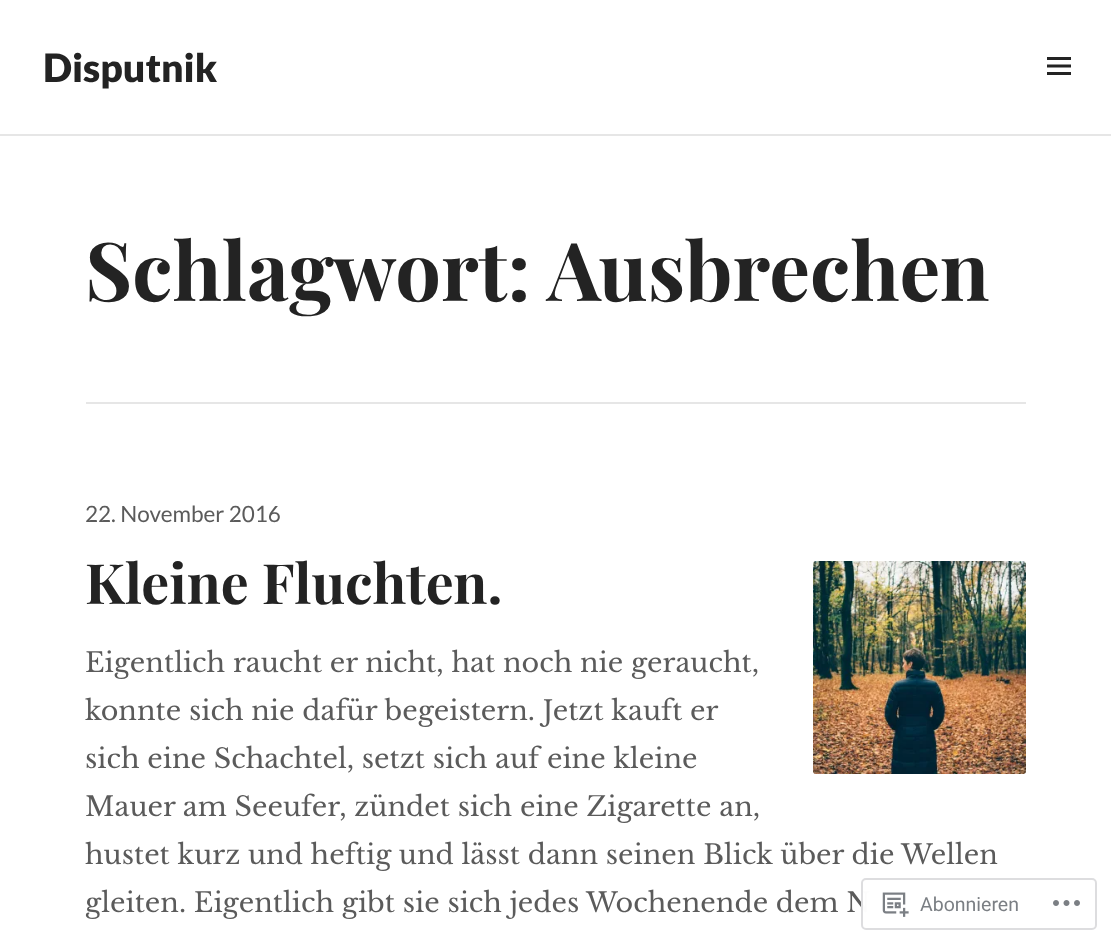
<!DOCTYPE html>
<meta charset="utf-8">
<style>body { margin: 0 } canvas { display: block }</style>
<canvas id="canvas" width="1111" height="945"></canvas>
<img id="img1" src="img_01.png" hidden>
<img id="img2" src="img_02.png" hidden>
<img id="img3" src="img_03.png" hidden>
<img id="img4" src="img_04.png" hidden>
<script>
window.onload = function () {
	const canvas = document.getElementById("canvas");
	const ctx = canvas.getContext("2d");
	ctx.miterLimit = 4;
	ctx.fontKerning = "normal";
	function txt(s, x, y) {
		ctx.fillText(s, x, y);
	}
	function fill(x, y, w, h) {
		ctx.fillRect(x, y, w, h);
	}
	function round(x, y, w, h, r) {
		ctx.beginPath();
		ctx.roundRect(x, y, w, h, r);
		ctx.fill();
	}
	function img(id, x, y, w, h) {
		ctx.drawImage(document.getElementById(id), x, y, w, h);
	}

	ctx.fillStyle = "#FFFFFF";
	fill(0, 0, 1111, 945);
	ctx.fillStyle = "#E6E6E6";
	fill(0, 134, 1111, 2);
	img("img1", 1047, 57, 24, 18);
	fill(86, 402, 940, 2);
	img("img2", 813, 561, 213, 213);
	ctx.font = "900 39px Lato";
	ctx.fillStyle = "#232323";
	txt("Disputnik", 43, 82);
	ctx.font = "bold 81px Playfair Display";
	txt("Schlagwort:", 85, 301);
	txt("Ausbrechen", 547, 301);
	ctx.font = "22.5px Lato";
	ctx.fillStyle = "#5B5B5B";
	txt("22. November 2016", 85, 522);
	ctx.font = "bold 55.5px Playfair Display";
	ctx.fillStyle = "#232323";
	txt("Kleine Fluchten.", 85, 604);
	ctx.font = "27px Libre Baskerville";
	ctx.fillStyle = "#5B5B5B";
	txt("Eigentlich raucht er nicht, hat noch nie geraucht,", 85, 672);
	txt("konnte sich nie dafür begeistern. Jetzt kauft er", 85, 720);
	txt("sich eine Schachtel, setzt sich auf eine kleine", 85, 768);
	txt("Mauer am Seeufer, zündet sich eine Zigarette an,", 85, 816);
	txt("hustet kurz und heftig und lässt dann seinen Blick über die Wellen", 85, 864);
	txt("gleiten. Eigentlich gibt sie sich jedes Wochenende dem N", 85, 912);
	ctx.fillStyle = "rgba(255, 255, 255, 0.98)";
	round(861, 878, 236, 52, 5);
	ctx.beginPath();
	ctx.roundRect(862, 879, 234, 50, 4);
	ctx.strokeStyle = "rgba(220, 220, 222, 0.98)";
	ctx.lineWidth = 2;
	ctx.stroke();
	img("img3", 882, 892, 27, 25);
	ctx.font = "19.5px Roboto";
	ctx.fillStyle = "#7B7F84";
	txt("Abonnieren", 920, 911);
	img("img4", 1053, 900, 27, 6);
};
</script>
